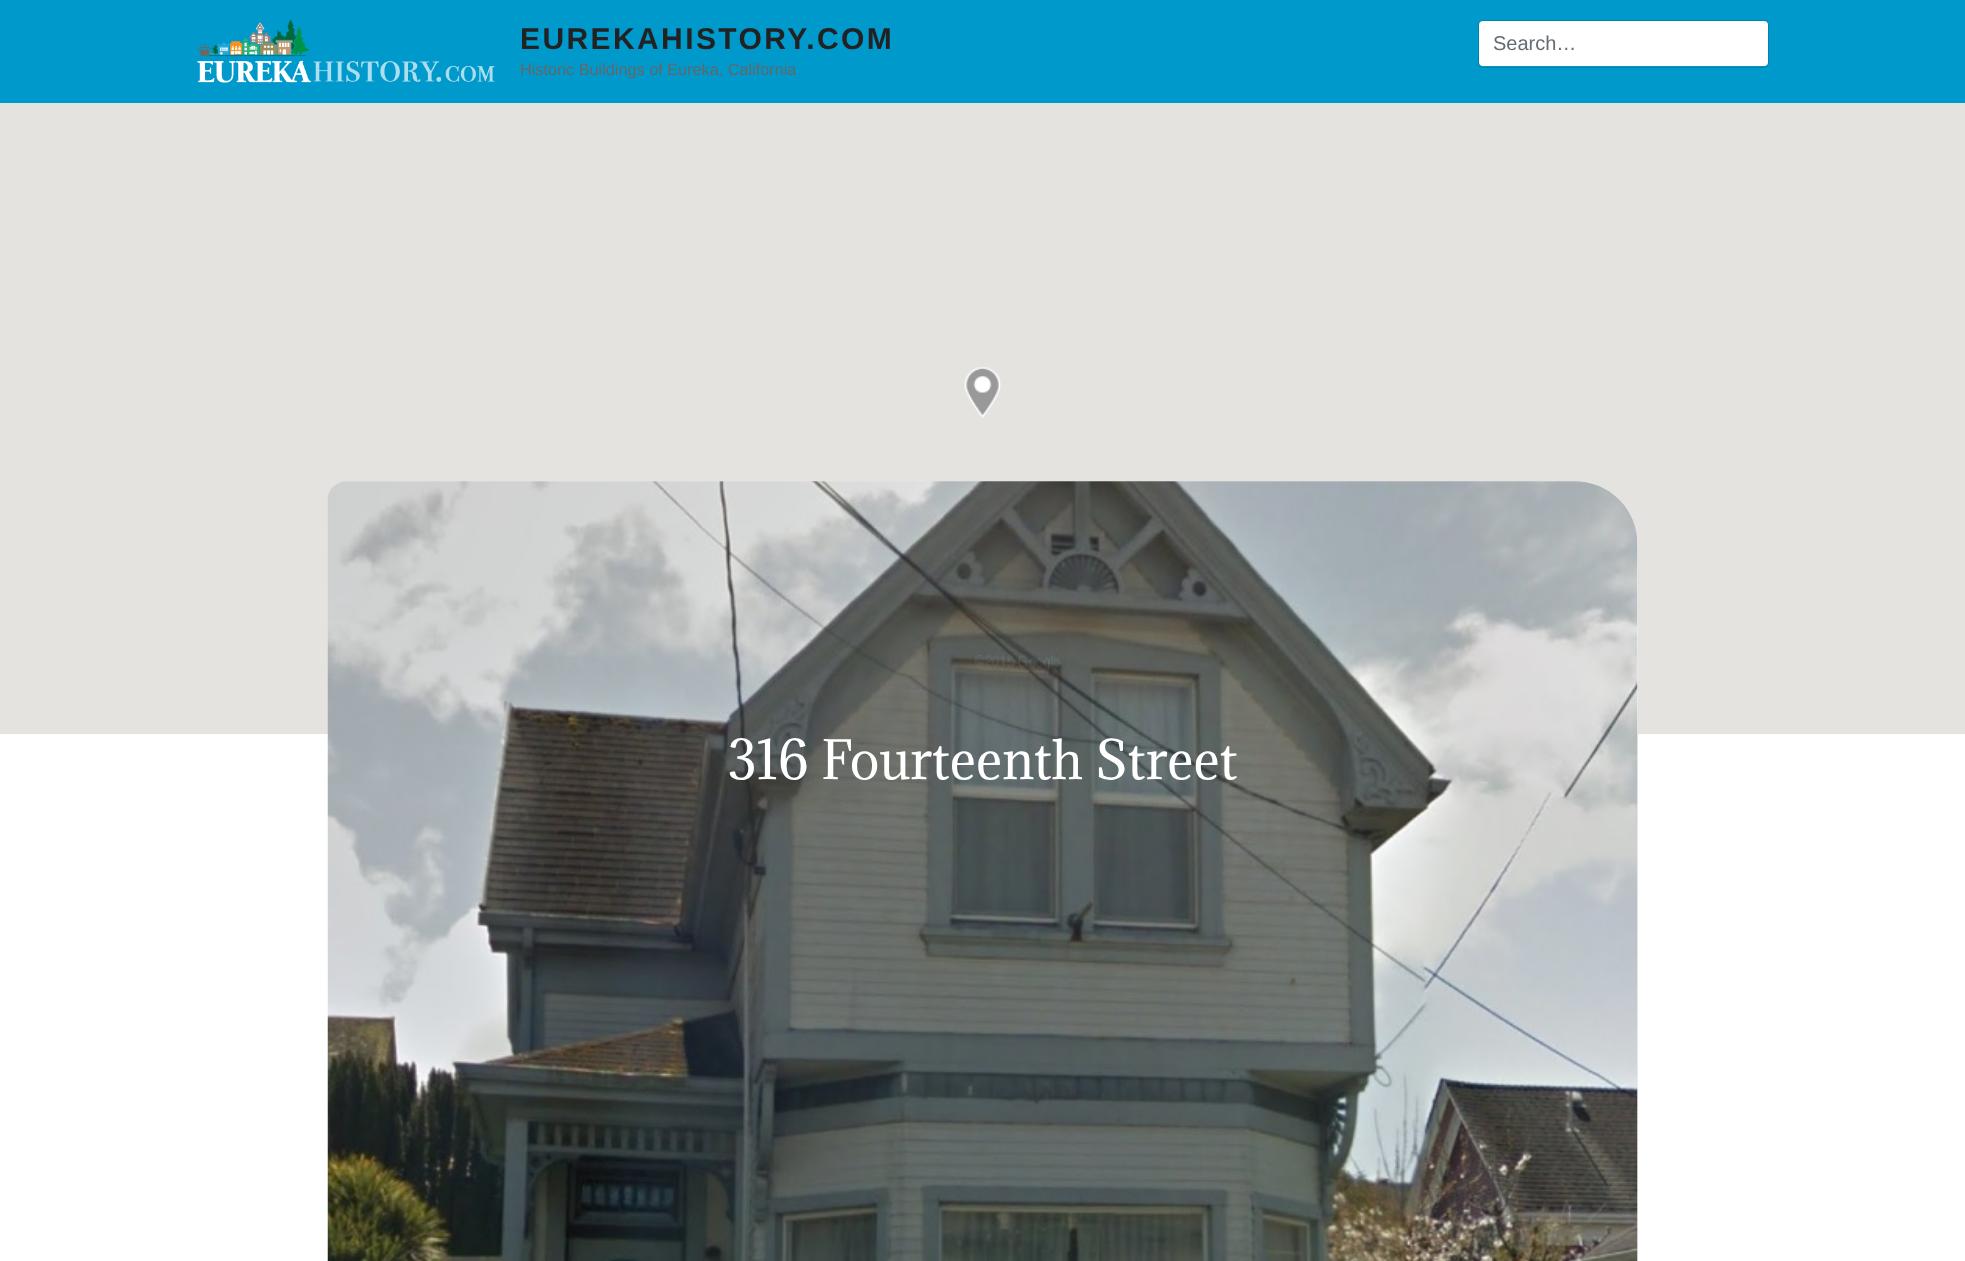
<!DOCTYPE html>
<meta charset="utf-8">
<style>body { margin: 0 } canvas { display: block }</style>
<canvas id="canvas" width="1965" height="1261"></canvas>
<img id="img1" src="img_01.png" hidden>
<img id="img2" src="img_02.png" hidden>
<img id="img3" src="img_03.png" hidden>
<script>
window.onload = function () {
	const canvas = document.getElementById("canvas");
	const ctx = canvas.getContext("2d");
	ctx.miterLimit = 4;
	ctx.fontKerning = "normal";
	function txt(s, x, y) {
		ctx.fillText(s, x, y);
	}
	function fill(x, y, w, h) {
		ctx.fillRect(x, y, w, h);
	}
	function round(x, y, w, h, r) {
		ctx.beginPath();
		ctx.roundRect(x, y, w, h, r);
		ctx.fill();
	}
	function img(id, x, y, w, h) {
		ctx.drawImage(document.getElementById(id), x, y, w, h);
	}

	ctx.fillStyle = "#FFFFFF";
	fill(0, 0, 1965, 1261);
	ctx.fillStyle = "#0099CC";
	fill(0, 0, 1965, 103);
	img("img1", 196, 20, 299, 63);
	ctx.fillStyle = "#FFFFFF";
	round(1479, 21, 289, 45, 4);
	ctx.beginPath();
	ctx.roundRect(1478.5, 20.5, 290, 47, 4.5);
	ctx.strokeStyle = "rgba(0, 0, 0, 0.15)";
	ctx.stroke();
	ctx.fillStyle = "#E5E3DF";
	fill(0, 103, 1965, 631);
	img("img2", 964, 367, 37, 51);
	ctx.fillStyle = "#EEEEEE";
	ctx.beginPath();
	ctx.moveTo(347, 481);
	ctx.lineTo(1575, 481);
	ctx.bezierCurveTo(1610, 481, 1638, 509, 1638, 544);
	ctx.lineTo(1638, 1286);
	ctx.bezierCurveTo(1638, 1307, 1621, 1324, 1600, 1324);
	ctx.lineTo(391, 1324);
	ctx.bezierCurveTo(356, 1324, 328, 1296, 328, 1261);
	ctx.lineTo(328, 500);
	ctx.bezierCurveTo(328, 489.5, 336.5, 481, 347, 481);
	ctx.closePath();
	ctx.fill();
	img("img3", 327, 481, 1311, 780);
	ctx.letterSpacing = "2.4px";
	ctx.font = "bold 30px Liberation Sans";
	ctx.fillStyle = "#222222";
	txt("EUREKAHISTORY.COM", 520, 49);
	ctx.letterSpacing = "0px";
	ctx.font = "16.25px Liberation Sans";
	ctx.fillStyle = "#666666";
	txt("Historic Buildings of Eureka, California", 520, 75);
	ctx.font = "20px Liberation Sans";
	ctx.fillStyle = "#636C72";
	txt("Search…", 1493, 50);
	ctx.font = "50px Adamina";
	ctx.fillStyle = "#FFFFFF";
	txt("316 Fourteenth Street", 728, 779);
};
</script>
